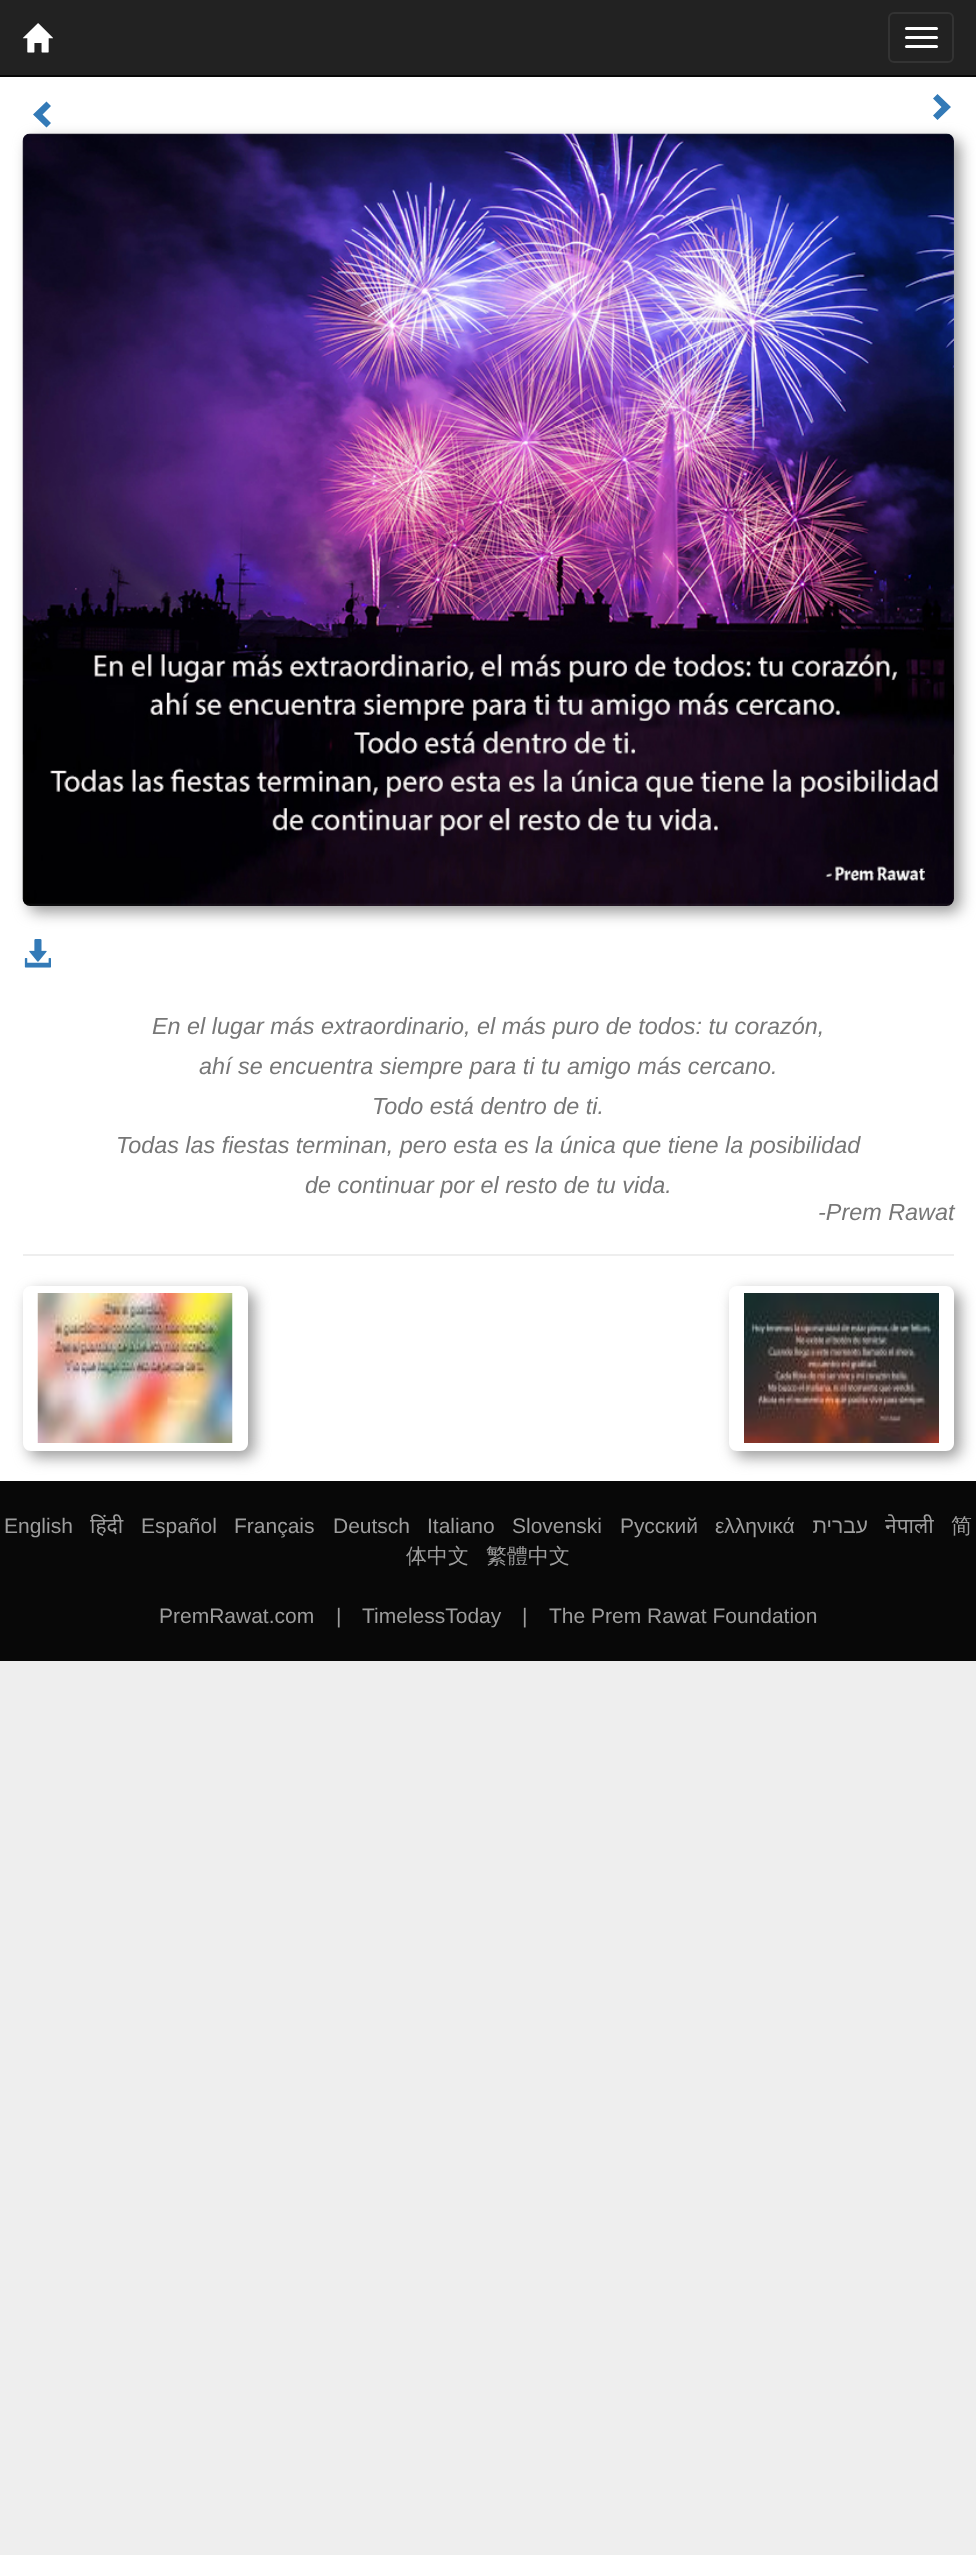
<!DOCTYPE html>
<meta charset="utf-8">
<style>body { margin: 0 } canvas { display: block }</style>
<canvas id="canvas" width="976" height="2555"></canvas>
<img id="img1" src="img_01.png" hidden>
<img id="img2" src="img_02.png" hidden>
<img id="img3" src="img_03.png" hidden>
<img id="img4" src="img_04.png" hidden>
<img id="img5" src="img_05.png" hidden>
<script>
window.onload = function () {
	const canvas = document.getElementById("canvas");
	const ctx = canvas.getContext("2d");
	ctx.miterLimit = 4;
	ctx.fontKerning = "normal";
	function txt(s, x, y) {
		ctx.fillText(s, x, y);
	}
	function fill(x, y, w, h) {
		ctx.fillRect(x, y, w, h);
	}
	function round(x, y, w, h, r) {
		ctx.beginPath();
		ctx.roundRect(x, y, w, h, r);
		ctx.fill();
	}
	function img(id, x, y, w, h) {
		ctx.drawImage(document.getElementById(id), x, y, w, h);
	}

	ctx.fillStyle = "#EEEEEE";
	fill(0, 0, 976, 2555);
	ctx.fillStyle = "#222222";
	fill(0, 0, 976, 75);
	ctx.fillStyle = "#080808";
	fill(0, 75, 976, 2);
	img("img1", 22, 23, 31, 30);
	ctx.beginPath();
	ctx.roundRect(889, 13, 64, 49, 5);
	ctx.strokeStyle = "#333333";
	ctx.lineWidth = 2;
	ctx.stroke();
	ctx.fillStyle = "#FFFFFF";
	round(905, 27, 33, 3, 1.5);
	round(905, 36, 33, 3, 1.5);
	round(905, 45, 33, 3, 1.5);
	fill(0, 77, 976, 1404);
	ctx.fillStyle = "#999999";
	ctx.filter = "blur(7.5px)";
	ctx.beginPath();
	ctx.roundRect(29, 140, 931, 772, 8);
	ctx.fill();
	ctx.filter = "none";
	ctx.fillStyle = "#337AB7";
	ctx.beginPath();
	ctx.moveTo(51, 106);
	ctx.lineTo(42.5, 114.5);
	ctx.lineTo(51, 123);
	ctx.lineTo(46.5, 127.5);
	ctx.lineTo(33, 114.5);
	ctx.lineTo(46.5, 101.5);
	ctx.closePath();
	ctx.fill();
	ctx.beginPath();
	ctx.moveTo(951, 107);
	ctx.lineTo(937.5, 120);
	ctx.lineTo(933, 115.5);
	ctx.lineTo(941.5, 107);
	ctx.lineTo(933, 98.5);
	ctx.lineTo(937.5, 94);
	ctx.closePath();
	ctx.fill();
	img("img2", 22, 133, 932, 773);
	img("img3", 24, 939, 27, 29);
	ctx.fillStyle = "#EEEEEE";
	fill(23, 1254, 931, 2);
	ctx.save();
	ctx.beginPath();
	ctx.moveTo(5, 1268);
	ctx.lineTo(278, 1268);
	ctx.lineTo(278, 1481);
	ctx.lineTo(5, 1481);
	ctx.closePath();
	ctx.moveTo(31, 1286);
	ctx.lineTo(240, 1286);
	ctx.bezierCurveTo(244.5, 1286, 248, 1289.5, 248, 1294);
	ctx.lineTo(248, 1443);
	ctx.bezierCurveTo(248, 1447.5, 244.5, 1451, 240, 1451);
	ctx.lineTo(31, 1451);
	ctx.bezierCurveTo(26.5, 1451, 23, 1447.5, 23, 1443);
	ctx.lineTo(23, 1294);
	ctx.bezierCurveTo(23, 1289.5, 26.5, 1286, 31, 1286);
	ctx.closePath();
	ctx.clip("evenodd");
	ctx.fillStyle = "#999999";
	ctx.filter = "blur(7.5px)";
	ctx.beginPath();
	ctx.roundRect(29, 1292, 225, 165, 8);
	ctx.fill();
	ctx.filter = "none";
	ctx.restore();
	img("img4", 37, 1293, 196, 150);
	ctx.save();
	ctx.beginPath();
	ctx.moveTo(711, 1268);
	ctx.lineTo(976, 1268);
	ctx.lineTo(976, 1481);
	ctx.lineTo(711, 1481);
	ctx.closePath();
	ctx.moveTo(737, 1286);
	ctx.lineTo(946, 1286);
	ctx.bezierCurveTo(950.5, 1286, 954, 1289.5, 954, 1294);
	ctx.lineTo(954, 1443);
	ctx.bezierCurveTo(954, 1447.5, 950.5, 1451, 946, 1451);
	ctx.lineTo(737, 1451);
	ctx.bezierCurveTo(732.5, 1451, 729, 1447.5, 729, 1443);
	ctx.lineTo(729, 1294);
	ctx.bezierCurveTo(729, 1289.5, 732.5, 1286, 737, 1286);
	ctx.closePath();
	ctx.clip("evenodd");
	ctx.fillStyle = "#999999";
	ctx.filter = "blur(7.5px)";
	ctx.beginPath();
	ctx.roundRect(735, 1292, 225, 165, 8);
	ctx.fill();
	ctx.filter = "none";
	ctx.restore();
	img("img5", 744, 1293, 195, 150);
	ctx.fillStyle = "#080808";
	fill(0, 1481, 976, 180);
	ctx.font = "italic 23.4px Liberation Sans";
	ctx.fillStyle = "#777777";
	txt("En el lugar más extraordinario, el más puro de todos: tu corazón,", 152, 1034);
	txt("ahí se encuentra siempre para ti tu amigo más cercano.", 199, 1074);
	txt("Todo está dentro de ti.", 372, 1114);
	txt("Todas las fiestas terminan, pero esta es la única que tiene la posibilidad", 116, 1153);
	txt("de continuar por el resto de tu vida.", 305, 1193);
	txt("-Prem Rawat", 818, 1220);
	ctx.font = "21px Liberation Sans";
	ctx.fillStyle = "#9D9D9D";
	txt("English", 4, 1533);
	ctx.font = "21px Noto Sans";
	txt("हिंदी", 90, 1533);
	ctx.font = "21px Liberation Sans";
	txt("Español", 141, 1533);
	txt("Français", 234, 1533);
	txt("Deutsch", 333, 1533);
	txt("Italiano", 427, 1533);
	txt("Slovenski", 512, 1533);
	txt("Русский", 620, 1533);
	txt("ελληνικά", 715, 1533);
	ctx.direction = "rtl";
	txt("עברית", 868, 1533);
	ctx.direction = "ltr";
	ctx.font = "21px Noto Sans";
	txt("नेपाली", 885, 1533);
	ctx.font = "500 21px WenQuanYi Zen Hei";
	txt("简", 951, 1533);
	txt("体中文", 406, 1563);
	txt("繁體中文", 486, 1563);
	ctx.font = "21px Liberation Sans";
	txt("PremRawat.com", 159, 1623);
	txt("|", 336, 1623);
	txt("TimelessToday", 362, 1623);
	txt("|", 522, 1623);
	txt("The Prem Rawat Foundation", 549, 1623);
};
</script>
